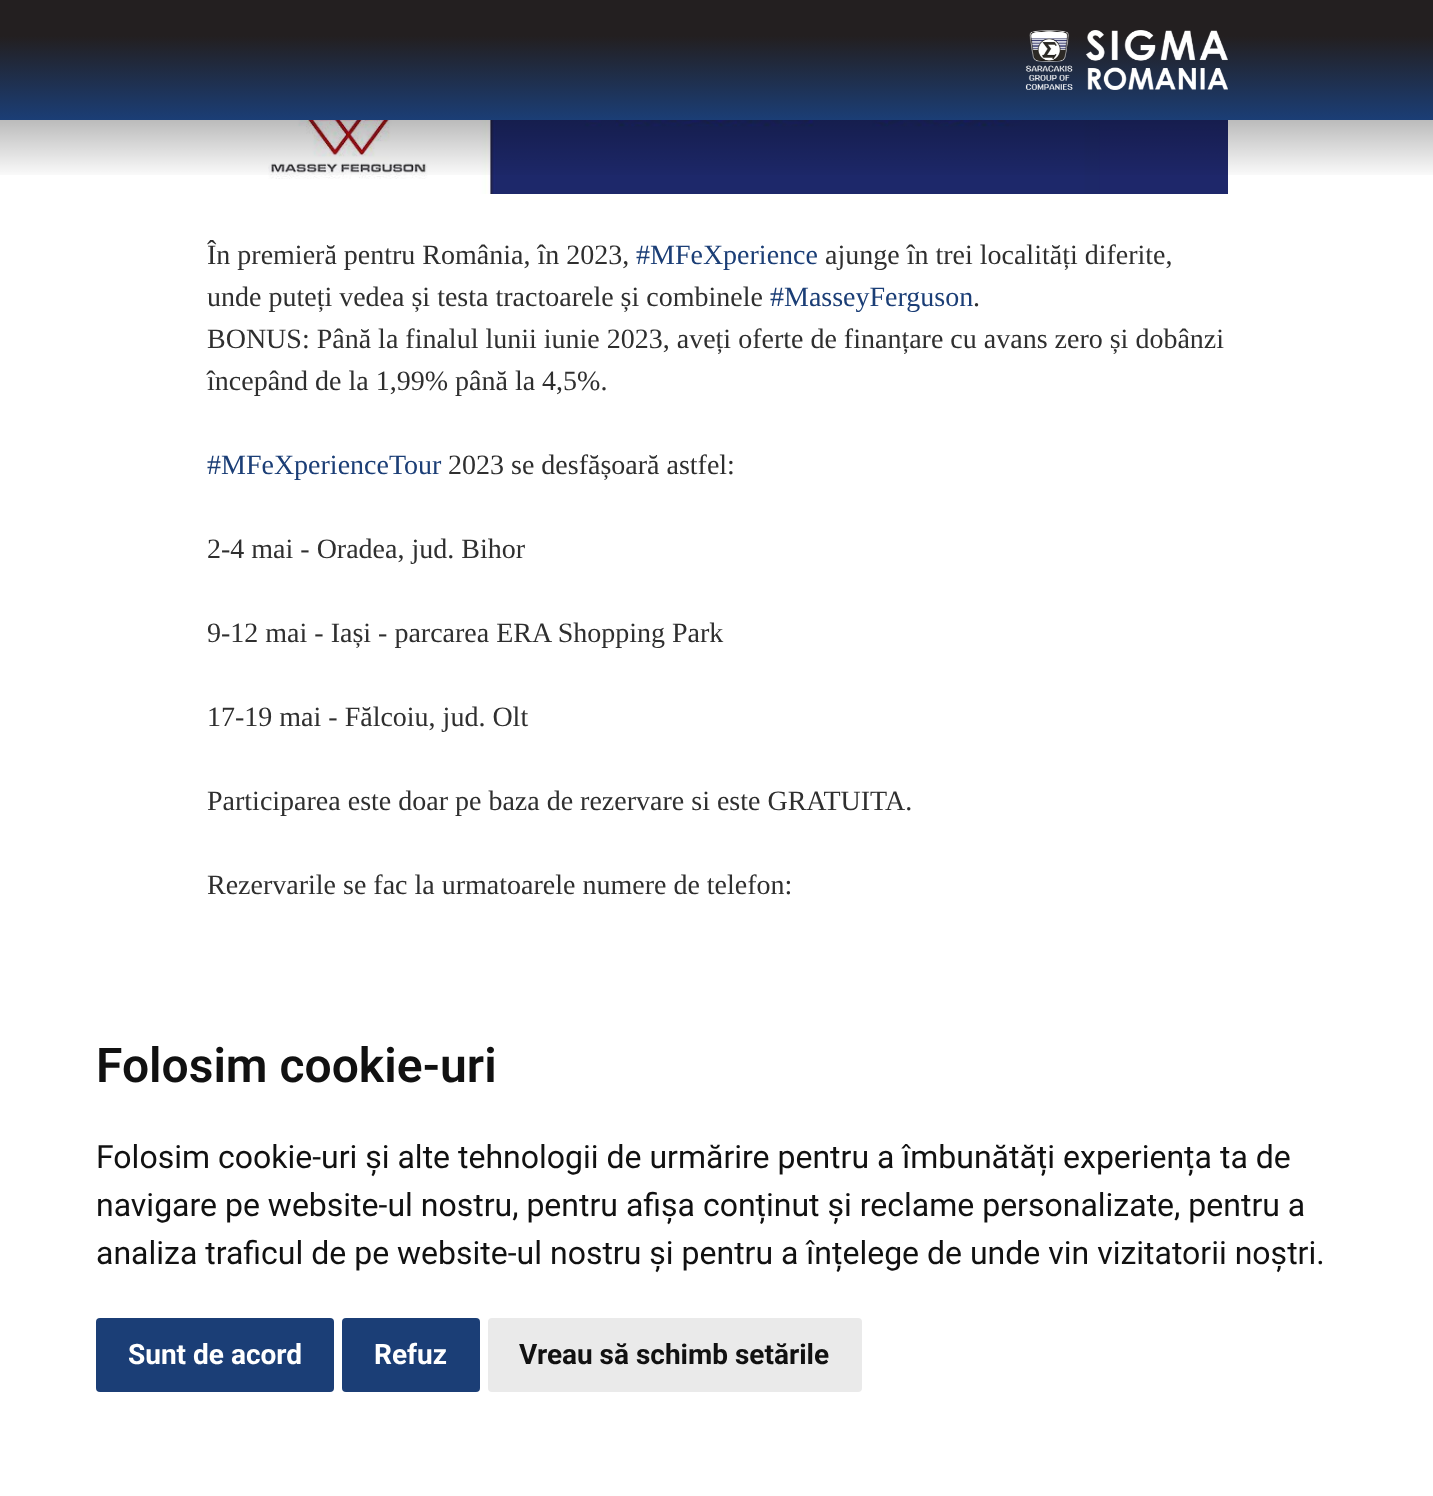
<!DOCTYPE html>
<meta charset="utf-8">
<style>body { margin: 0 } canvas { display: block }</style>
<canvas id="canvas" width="1433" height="1496"></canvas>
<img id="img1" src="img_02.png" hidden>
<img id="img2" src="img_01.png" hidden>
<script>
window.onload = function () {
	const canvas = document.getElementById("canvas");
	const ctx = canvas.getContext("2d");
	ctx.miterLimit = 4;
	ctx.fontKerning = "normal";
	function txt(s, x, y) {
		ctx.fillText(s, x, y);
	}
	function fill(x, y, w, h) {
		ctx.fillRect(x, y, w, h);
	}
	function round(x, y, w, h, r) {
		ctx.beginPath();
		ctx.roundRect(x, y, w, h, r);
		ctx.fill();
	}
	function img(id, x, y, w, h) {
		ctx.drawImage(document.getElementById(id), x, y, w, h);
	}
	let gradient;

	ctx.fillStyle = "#FFFFFF";
	fill(0, 0, 1433, 1496);
	img("img1", 208, 120, 1020, 74);
	gradient = ctx.createLinearGradient(717, 0, 717, 180);
	gradient.addColorStop(0, "rgba(0, 0, 0, 0.8)");
	gradient.addColorStop(1, "rgba(0, 0, 0, 0)");
	ctx.fillStyle = gradient;
	fill(0, 120, 1433, 55);
	gradient = ctx.createLinearGradient(717, 0, 717, 120);
	gradient.addColorStop(0.3, "#231F20");
	gradient.addColorStop(1, "#1B3E76");
	ctx.fillStyle = gradient;
	fill(0, 0, 1433, 120);
	img("img2", 1025, 30, 203, 60);
	ctx.fillStyle = "#1B3E76";
	round(96, 1318, 238, 74, 4);
	round(342, 1318, 138, 74, 4);
	ctx.fillStyle = "#EAEAEA";
	round(488, 1318, 374, 74, 4);
	ctx.font = "28px Liberation Serif";
	ctx.fillStyle = "#2F2F2F";
	txt("În premieră pentru România, în 2023,", 207, 264);
	ctx.fillStyle = "#1B3E76";
	txt("#MFeXperience", 636, 264);
	ctx.fillStyle = "#2F2F2F";
	txt("ajunge în trei localități diferite,", 825, 264);
	txt("unde puteți vedea și testa tractoarele și combinele", 207, 306);
	ctx.fillStyle = "#1B3E76";
	txt("#MasseyFerguson", 770, 306);
	ctx.fillStyle = "#2F2F2F";
	txt(".", 973, 306);
	txt("BONUS: Până la finalul lunii iunie 2023, aveți oferte de finanțare cu avans zero și dobânzi", 207, 348);
	txt("începând de la 1,99% până la 4,5%.", 207, 390);
	ctx.fillStyle = "#1B3E76";
	txt("#MFeXperienceTour", 207, 474);
	ctx.fillStyle = "#2F2F2F";
	txt("2023 se desfășoară astfel:", 448, 474);
	txt("2-4 mai - Oradea, jud. Bihor", 207, 558);
	txt("9-12 mai - Iași - parcarea ERA Shopping Park", 207, 642);
	txt("17-19 mai - Fălcoiu, jud. Olt", 207, 726);
	txt("Participarea este doar pe baza de rezervare si este GRATUITA.", 207, 810);
	txt("Rezervarile se fac la urmatoarele numere de telefon:", 207, 894);
	ctx.font = "600 48px Roboto";
	ctx.fillStyle = "#111111";
	txt("Folosim cookie-uri", 96, 1082);
	ctx.font = "32px Roboto";
	txt("Folosim cookie-uri și alte tehnologii de urmărire pentru a îmbunătăți experiența ta de", 96, 1168);
	txt("navigare pe website-ul nostru, pentru afișa conținut și reclame personalizate, pentru a", 96, 1216);
	txt("analiza traficul de pe website-ul nostru și pentru a înțelege de unde vin vizitatorii noștri.", 96, 1264);
	ctx.font = "bold 28px Roboto";
	ctx.fillStyle = "#FFFFFF";
	txt("Sunt de acord", 128, 1364);
	txt("Refuz", 374, 1364);
	ctx.fillStyle = "#111111";
	txt("Vreau să schimb setările", 519, 1364);
};
</script>
